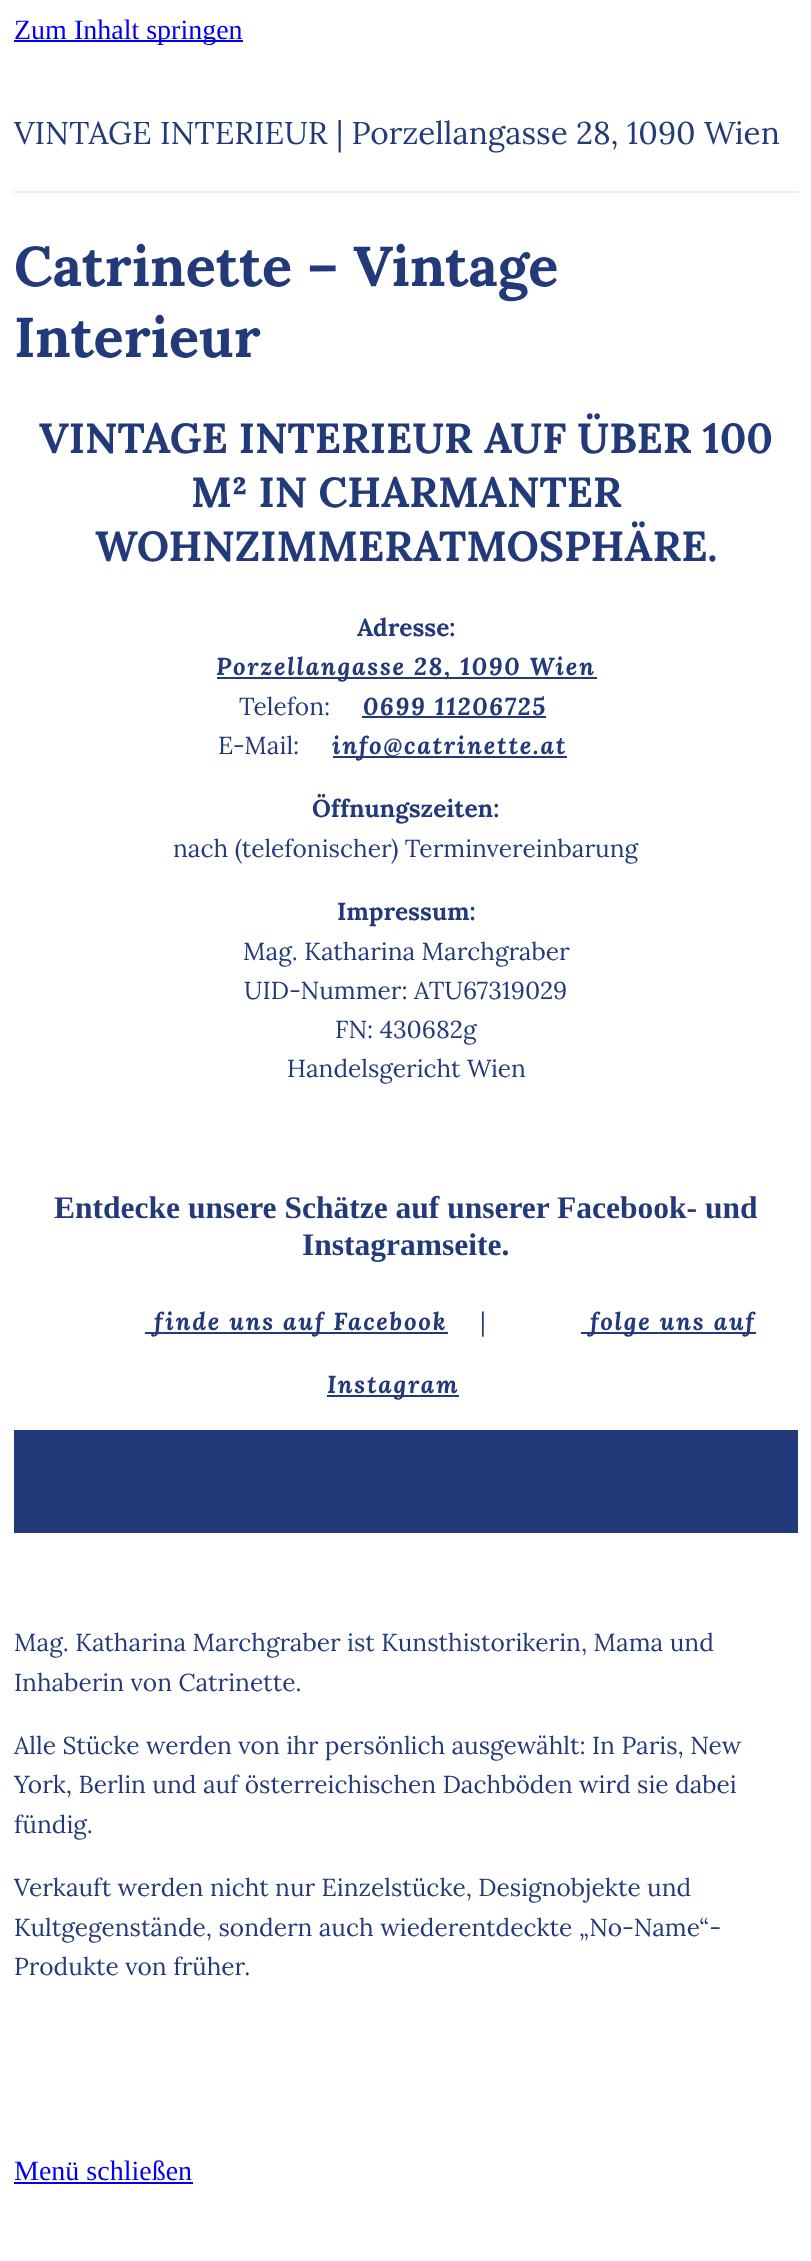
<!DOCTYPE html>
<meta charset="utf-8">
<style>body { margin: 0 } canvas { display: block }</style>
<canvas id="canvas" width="811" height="2261"></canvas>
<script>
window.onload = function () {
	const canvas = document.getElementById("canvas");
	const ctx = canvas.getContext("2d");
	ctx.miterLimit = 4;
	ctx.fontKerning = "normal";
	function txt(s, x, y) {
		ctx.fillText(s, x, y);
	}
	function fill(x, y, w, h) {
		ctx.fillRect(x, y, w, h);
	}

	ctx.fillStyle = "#FFFFFF";
	fill(0, 0, 811, 2261);
	ctx.fillStyle = "#0000EE";
	fill(14, 40, 229, 2);
	ctx.fillStyle = "#EBEBEB";
	fill(14, 191, 784, 2);
	ctx.fillStyle = "#223A7A";
	fill(217, 677, 380, 2);
	fill(362, 716, 184, 2);
	fill(333, 756, 234, 2);
	fill(145, 1332, 303, 2);
	fill(581, 1332, 175, 2);
	fill(327, 1395, 132, 2);
	fill(14, 1430, 784, 103);
	ctx.fillStyle = "#0000EE";
	fill(14, 2182, 179, 2);
	ctx.font = "28px Liberation Serif";
	txt("Zum Inhalt springen", 14, 39);
	ctx.font = "31.5px Lora";
	ctx.fillStyle = "#223A7A";
	txt("VINTAGE INTERIEUR | Porzellangasse 28, 1090 Wien", 14, 144);
	ctx.font = "bold 56px Lora";
	txt("Catrinette – Vintage", 14, 286);
	txt("Interieur", 14, 357);
	ctx.font = "bold 42px Lora";
	txt("VINTAGE INTERIEUR AUF ÜBER 100", 39, 453);
	txt("M² IN CHARMANTER", 191, 507);
	txt("WOHNZIMMERATMOSPHÄRE.", 95, 561);
	ctx.font = "bold 24.5px Lora";
	txt("Adresse:", 357, 636);
	ctx.letterSpacing = "1.75px";
	ctx.font = "italic bold 24.5px Lora";
	txt("Porzellangasse 28, 1090 Wien", 216, 675);
	ctx.letterSpacing = "0px";
	ctx.font = "24.5px Lora";
	txt("Telefon:", 239, 715);
	ctx.letterSpacing = "1.75px";
	ctx.font = "italic bold 24.5px Lora";
	txt("0699 11206725", 363, 715);
	ctx.letterSpacing = "0px";
	ctx.font = "24.5px Lora";
	txt("E-Mail:", 218, 754);
	ctx.letterSpacing = "1.75px";
	ctx.font = "italic bold 24.5px Lora";
	txt("info@catrinette.at", 332, 754);
	ctx.letterSpacing = "0px";
	ctx.font = "bold 24.5px Lora";
	txt("Öffnungszeiten:", 312, 817);
	ctx.font = "24.5px Lora";
	txt("nach (telefonischer) Terminvereinbarung", 173, 857);
	ctx.font = "bold 24.5px Lora";
	txt("Impressum:", 337, 920);
	ctx.font = "24.5px Lora";
	txt("Mag. Katharina Marchgraber", 243, 960);
	txt("UID-Nummer: ATU67319029", 244, 999);
	txt("FN: 430682g", 335, 1038);
	txt("Handelsgericht Wien", 287, 1077);
	ctx.font = "bold 31.5px Liberation Serif";
	txt("Entdecke unsere Schätze auf unserer Facebook- und", 54, 1218);
	txt("Instagramseite.", 302, 1255);
	ctx.letterSpacing = "1.75px";
	ctx.font = "italic bold 24.5px Lora";
	txt("finde uns auf Facebook", 154, 1330);
	ctx.letterSpacing = "0px";
	ctx.font = "24.5px Lora";
	txt("|", 480, 1330);
	ctx.letterSpacing = "1.75px";
	ctx.font = "italic bold 24.5px Lora";
	txt("folge uns auf", 590, 1330);
	txt("Instagram", 327, 1393);
	ctx.letterSpacing = "0px";
	ctx.font = "24.5px Lora";
	txt("Mag. Katharina Marchgraber ist Kunsthistorikerin, Mama und", 14, 1651);
	txt("Inhaberin von Catrinette.", 14, 1691);
	txt("Alle Stücke werden von ihr persönlich ausgewählt: In Paris, New", 14, 1754);
	txt("York, Berlin und auf österreichischen Dachböden wird sie dabei", 14, 1793);
	txt("fündig.", 14, 1833);
	txt("Verkauft werden nicht nur Einzelstücke, Designobjekte und", 14, 1896);
	txt("Kultgegenstände, sondern auch wiederentdeckte „No-Name“-", 14, 1936);
	txt("Produkte von früher.", 14, 1975);
	ctx.font = "28px Liberation Serif";
	ctx.fillStyle = "#0000EE";
	txt("Menü schließen", 14, 2180);
};
</script>
